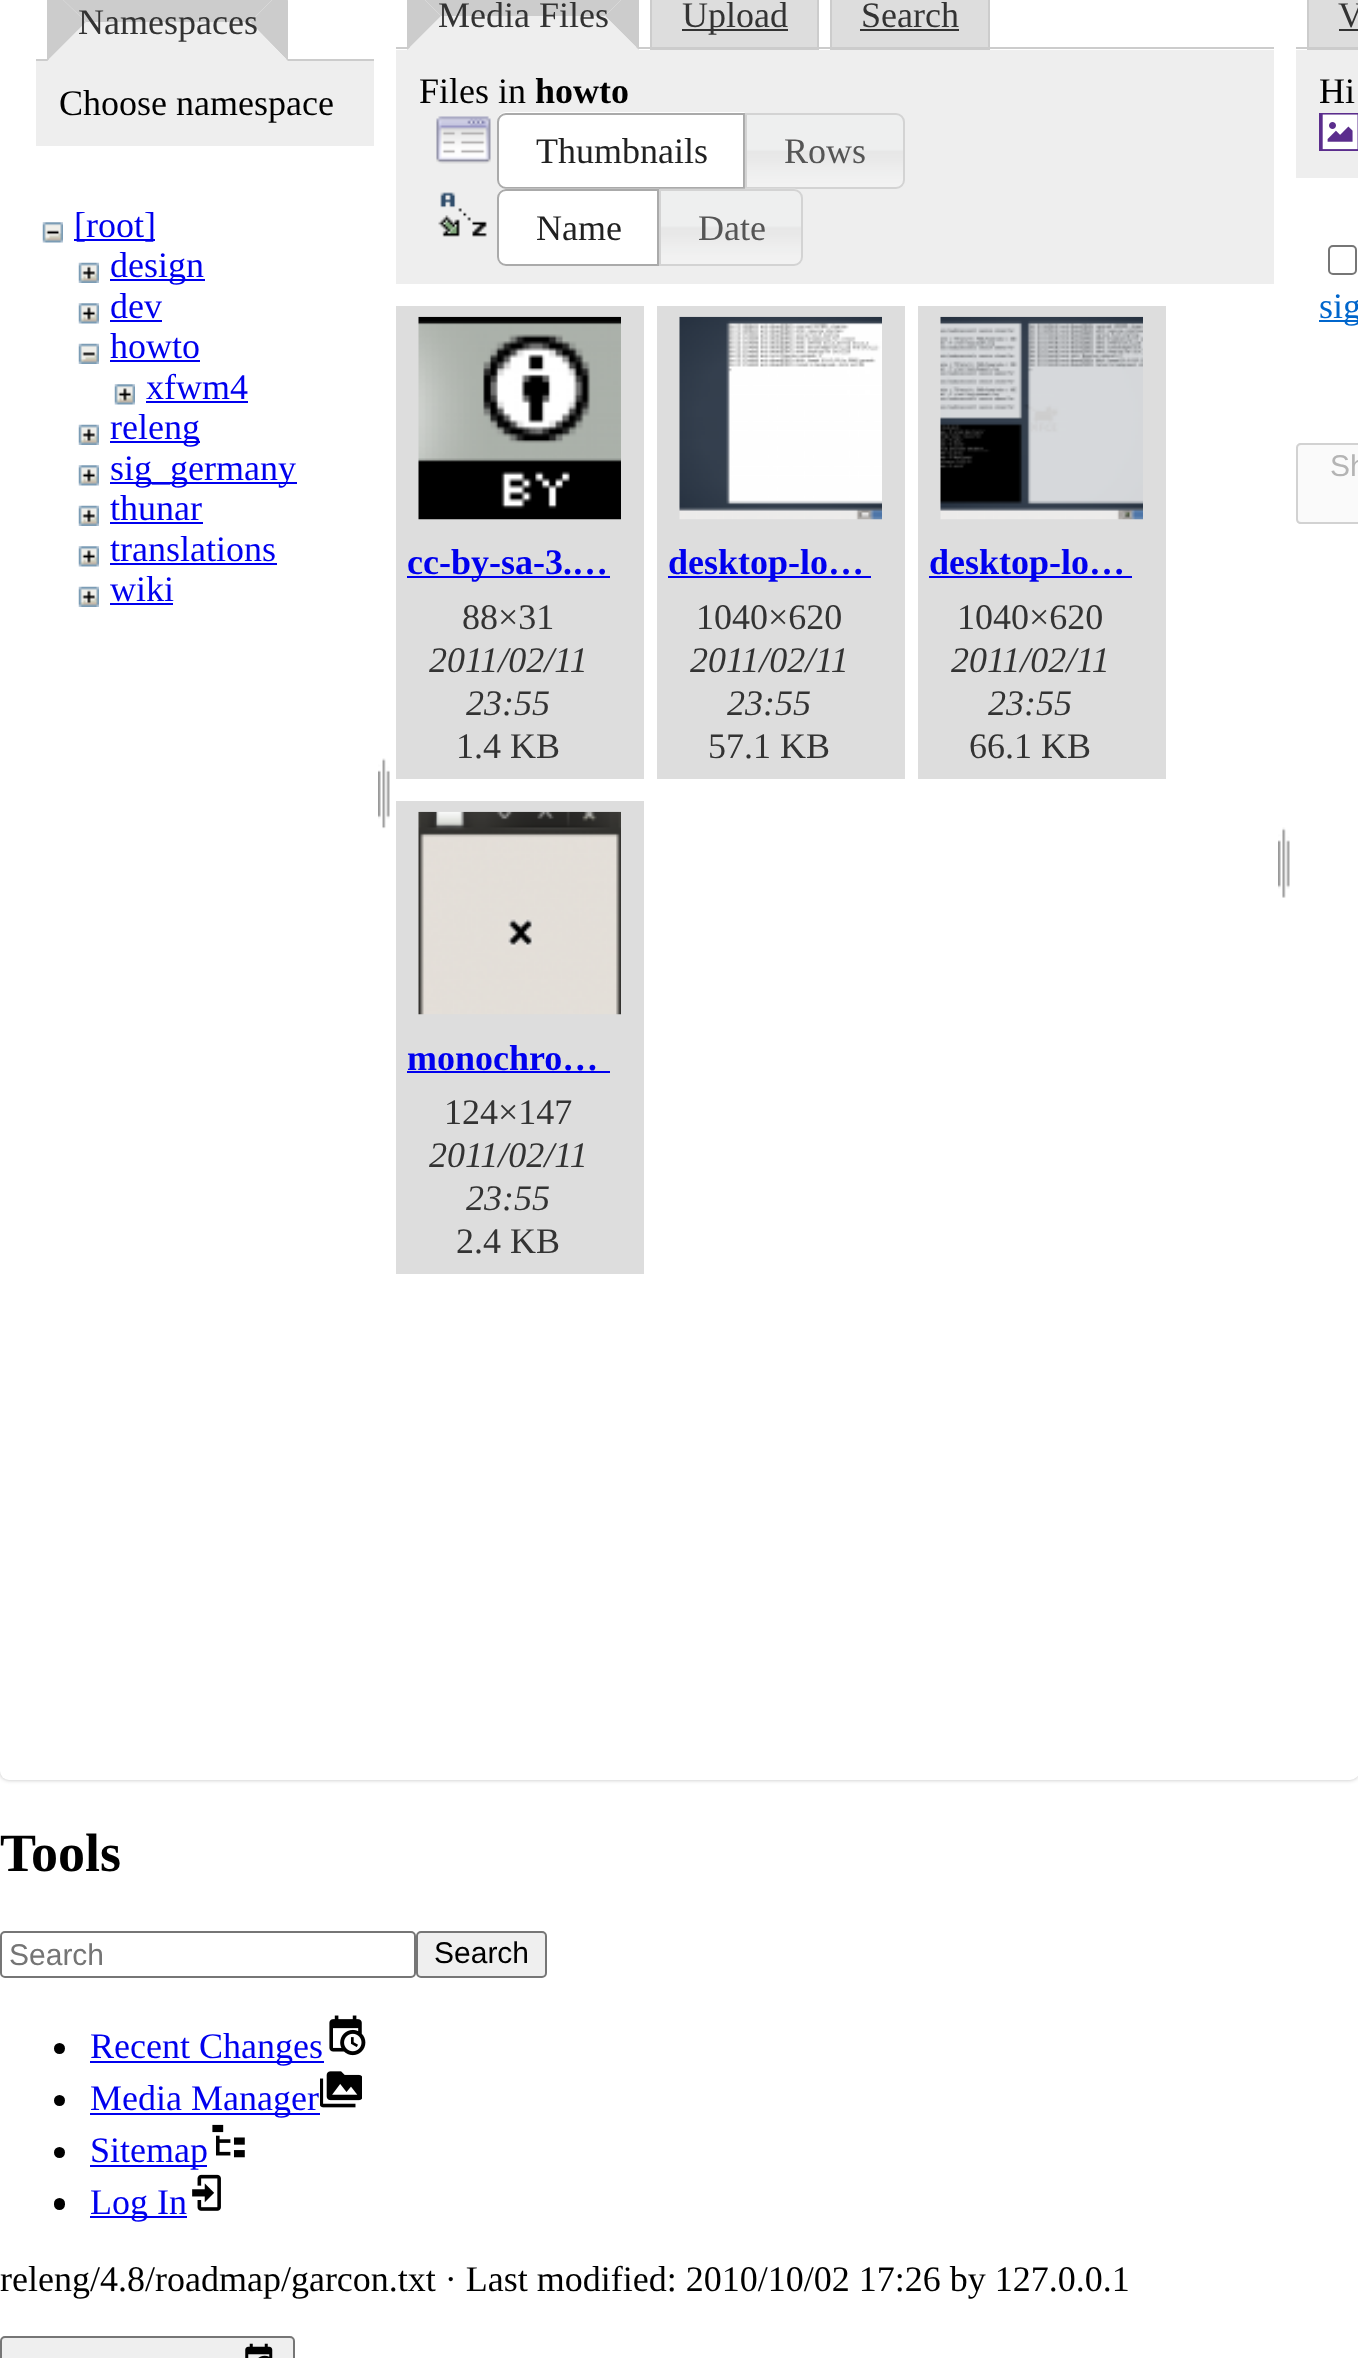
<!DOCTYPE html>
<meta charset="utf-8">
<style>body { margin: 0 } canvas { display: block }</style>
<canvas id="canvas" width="1358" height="2358"></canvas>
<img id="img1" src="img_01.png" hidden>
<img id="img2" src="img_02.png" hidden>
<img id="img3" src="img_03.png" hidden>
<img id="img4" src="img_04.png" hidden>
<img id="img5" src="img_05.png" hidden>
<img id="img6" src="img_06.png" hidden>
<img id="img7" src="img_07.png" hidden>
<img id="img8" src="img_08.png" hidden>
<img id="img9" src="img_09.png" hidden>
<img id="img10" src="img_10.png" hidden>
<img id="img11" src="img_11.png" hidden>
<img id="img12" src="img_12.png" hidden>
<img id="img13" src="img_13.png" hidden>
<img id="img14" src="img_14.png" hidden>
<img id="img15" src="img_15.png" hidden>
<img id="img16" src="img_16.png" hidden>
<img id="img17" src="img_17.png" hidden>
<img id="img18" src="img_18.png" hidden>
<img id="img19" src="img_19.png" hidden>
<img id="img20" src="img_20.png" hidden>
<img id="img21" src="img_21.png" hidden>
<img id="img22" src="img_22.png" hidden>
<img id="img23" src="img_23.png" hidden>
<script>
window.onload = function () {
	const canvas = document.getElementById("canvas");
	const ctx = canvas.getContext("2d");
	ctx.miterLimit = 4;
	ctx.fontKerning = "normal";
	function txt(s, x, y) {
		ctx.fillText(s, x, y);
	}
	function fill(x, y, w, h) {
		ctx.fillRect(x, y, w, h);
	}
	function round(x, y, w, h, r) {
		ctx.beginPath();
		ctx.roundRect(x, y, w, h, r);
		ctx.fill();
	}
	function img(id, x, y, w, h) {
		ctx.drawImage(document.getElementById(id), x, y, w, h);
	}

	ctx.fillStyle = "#FFFFFF";
	fill(0, 0, 1358, 2358);
	ctx.fillStyle = "rgba(0, 0, 0, 0.25)";
	ctx.filter = "blur(2px)";
	ctx.beginPath();
	ctx.roundRect(0, -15, 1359, 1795, 9);
	ctx.fill();
	ctx.filter = "none";
	ctx.fillStyle = "#FFFFFF";
	round(0, -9, 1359, 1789, 9);
	ctx.fillStyle = "#CCCCCC";
	ctx.beginPath();
	ctx.moveTo(273, -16);
	ctx.lineTo(62, -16);
	ctx.bezierCurveTo(58, -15, 55, -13, 52, -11);
	ctx.lineTo(86, 22);
	ctx.lineTo(250, 22);
	ctx.lineTo(283, -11);
	ctx.bezierCurveTo(280, -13, 277, -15, 273, -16);
	ctx.closePath();
	ctx.fill();
	fill(36, 59, 338, 2);
	ctx.beginPath();
	ctx.moveTo(283, -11);
	ctx.lineTo(250, 22);
	ctx.lineTo(288, 61);
	ctx.lineTo(288, 2);
	ctx.bezierCurveTo(288, -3, 286, -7, 283, -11);
	ctx.closePath();
	ctx.fill();
	ctx.fillStyle = "#EEEEEE";
	ctx.beginPath();
	ctx.moveTo(288, 61);
	ctx.lineTo(250, 22);
	ctx.lineTo(86, 22);
	ctx.lineTo(47, 61);
	ctx.closePath();
	ctx.fill();
	ctx.fillStyle = "#CCCCCC";
	ctx.beginPath();
	ctx.moveTo(47, 61);
	ctx.lineTo(86, 22);
	ctx.lineTo(52, -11);
	ctx.bezierCurveTo(50, -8, 48, -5, 47, -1);
	ctx.closePath();
	ctx.fill();
	ctx.fillStyle = "#EEEEEE";
	fill(36, 61, 338, 85);
	img("img1", 42, 222, 21, 21);
	ctx.fillStyle = "#0000EE";
	fill(74, 239, 81, 2);
	img("img2", 78, 262, 21, 21);
	fill(110, 279, 95, 2);
	img("img3", 78, 303, 21, 21);
	fill(110, 320, 52, 2);
	img("img4", 78, 343, 21, 21);
	fill(110, 360, 90, 2);
	img("img3", 114, 384, 21, 21);
	fill(146, 401, 102, 2);
	img("img2", 78, 424, 21, 21);
	fill(110, 441, 90, 2);
	img("img3", 78, 465, 21, 21);
	fill(110, 482, 187, 2);
	img("img5", 78, 505, 21, 21);
	fill(110, 522, 93, 2);
	img("img3", 78, 546, 21, 21);
	fill(110, 563, 167, 2);
	img("img2", 78, 586, 21, 21);
	fill(110, 603, 63, 2);
	img("img6", 378, 758, 12, 71);
	ctx.fillStyle = "#CCCCCC";
	ctx.beginPath();
	ctx.moveTo(425, -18);
	ctx.lineTo(621, -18);
	ctx.bezierCurveTo(626, -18, 630, -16, 634, -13);
	ctx.lineTo(605, 16);
	ctx.lineTo(441, 16);
	ctx.lineTo(412, -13);
	ctx.bezierCurveTo(416, -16, 420, -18, 425, -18);
	ctx.closePath();
	ctx.fill();
	ctx.fillStyle = "#DDDDDD";
	fill(652, 0, 165, 47);
	ctx.strokeStyle = "#CCCCCC";
	ctx.lineWidth = 2;
	ctx.strokeRect(651, -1, 167, 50);
	fill(832, 0, 156, 47);
	ctx.strokeRect(831, -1, 158, 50);
	ctx.fillStyle = "#CCCCCC";
	fill(396, 47, 878, 2);
	ctx.beginPath();
	ctx.moveTo(634, -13);
	ctx.lineTo(605, 16);
	ctx.lineTo(639, 50);
	ctx.lineTo(639, 0);
	ctx.bezierCurveTo(639, -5, 637, -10, 634, -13);
	ctx.closePath();
	ctx.fill();
	ctx.fillStyle = "#EEEEEE";
	ctx.beginPath();
	ctx.moveTo(639, 50);
	ctx.lineTo(605, 16);
	ctx.lineTo(441, 16);
	ctx.lineTo(407, 50);
	ctx.closePath();
	ctx.fill();
	ctx.fillStyle = "#CCCCCC";
	ctx.beginPath();
	ctx.moveTo(407, 50);
	ctx.lineTo(441, 16);
	ctx.lineTo(412, -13);
	ctx.bezierCurveTo(410, -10, 408, -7, 407, -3);
	ctx.closePath();
	ctx.fill();
	ctx.fillStyle = "#333333";
	fill(682, 29, 106, 2);
	fill(860, 29, 99, 2);
	ctx.fillStyle = "#EEEEEE";
	fill(396, 50, 878, 234);
	img("img7", 436, 116, 55, 48);
	ctx.fillStyle = "#FFFFFF";
	ctx.beginPath();
	ctx.roundRect(497, 113, 248, 76, [9, 0, 0, 9]);
	ctx.fill();
	img("img8", 498, 112, 247, 5);
	ctx.beginPath();
	ctx.roundRect(498, 114, 246, 74, [8, 0, 0, 8]);
	ctx.strokeStyle = "#AAAAAA";
	ctx.stroke();
	img("img9", 744, 113, 160, 75);
	ctx.beginPath();
	ctx.roundRect(746, 114, 158, 74, [0, 8, 8, 0]);
	ctx.strokeStyle = "#D3D3D3";
	ctx.stroke();
	img("img10", 438, 192, 49, 45);
	ctx.beginPath();
	ctx.roundRect(497, 189, 162, 77, [9, 0, 0, 9]);
	ctx.fill();
	img("img11", 499, 188, 160, 4);
	ctx.beginPath();
	ctx.roundRect(498, 190, 160, 75, [8, 0, 0, 8]);
	ctx.strokeStyle = "#AAAAAA";
	ctx.stroke();
	img("img12", 659, 188, 144, 76);
	ctx.beginPath();
	ctx.roundRect(660, 190, 142, 75, [0, 8, 8, 0]);
	ctx.strokeStyle = "#D3D3D3";
	ctx.stroke();
	ctx.fillStyle = "#DDDDDD";
	fill(396, 306, 248, 473);
	img("img13", 418, 316, 203, 204);
	ctx.fillStyle = "#0000EE";
	fill(407, 576, 203, 2);
	ctx.fillStyle = "#DDDDDD";
	fill(657, 306, 248, 473);
	img("img14", 679, 316, 203, 204);
	ctx.fillStyle = "#0000EE";
	fill(668, 576, 203, 2);
	ctx.fillStyle = "#DDDDDD";
	fill(918, 306, 248, 473);
	img("img15", 940, 316, 203, 204);
	ctx.fillStyle = "#0000EE";
	fill(929, 576, 203, 2);
	ctx.fillStyle = "#DDDDDD";
	fill(396, 801, 248, 473);
	img("img16", 418, 811, 203, 204);
	ctx.fillStyle = "#0000EE";
	fill(407, 1071, 203, 2);
	img("img17", 1278, 827, 12, 71);
	ctx.fillStyle = "#DDDDDD";
	fill(1309, 0, 49, 47);
	ctx.fillStyle = "#CCCCCC";
	ctx.beginPath();
	ctx.moveTo(1325, -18);
	ctx.bezierCurveTo(1315, -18, 1307, -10, 1307, 0);
	ctx.lineTo(1307, 50);
	ctx.lineTo(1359, 50);
	ctx.lineTo(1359, 48);
	ctx.lineTo(1309, 48);
	ctx.lineTo(1309, 0);
	ctx.bezierCurveTo(1309, -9, 1316, -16, 1325, -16);
	ctx.lineTo(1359, -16);
	ctx.lineTo(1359, -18);
	ctx.closePath();
	ctx.fill();
	ctx.fillStyle = "#333333";
	fill(1339, 29, 19, 2);
	ctx.fillStyle = "#CCCCCC";
	fill(1296, 47, 62, 2);
	ctx.fillStyle = "#EEEEEE";
	fill(1296, 50, 62, 128);
	img("img18", 1319, 113, 39, 38);
	ctx.beginPath();
	ctx.roundRect(1329, 246, 27, 28, 4);
	ctx.strokeStyle = "#767676";
	ctx.stroke();
	ctx.fillStyle = "#0066CC";
	fill(1319, 320, 39, 2);
	ctx.fillStyle = "#FAFAFA";
	ctx.beginPath();
	ctx.moveTo(1301, 443);
	ctx.lineTo(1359, 443);
	ctx.lineTo(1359, 524);
	ctx.lineTo(1301, 524);
	ctx.bezierCurveTo(1298, 524, 1296, 522, 1296, 519);
	ctx.lineTo(1296, 448);
	ctx.bezierCurveTo(1296, 445, 1298, 443, 1301, 443);
	ctx.closePath();
	ctx.fill();
	ctx.fillStyle = "#D2D2D2";
	ctx.beginPath();
	ctx.moveTo(1301, 443);
	ctx.bezierCurveTo(1298, 443, 1296, 445, 1296, 448);
	ctx.lineTo(1296, 519);
	ctx.bezierCurveTo(1296, 522, 1298, 524, 1301, 524);
	ctx.lineTo(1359, 524);
	ctx.lineTo(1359, 522);
	ctx.lineTo(1301, 522);
	ctx.bezierCurveTo(1299, 522, 1298, 521, 1298, 519);
	ctx.lineTo(1298, 448);
	ctx.bezierCurveTo(1298, 446, 1299, 445, 1301, 445);
	ctx.lineTo(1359, 445);
	ctx.lineTo(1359, 443);
	ctx.closePath();
	ctx.fill();
	ctx.beginPath();
	ctx.roundRect(1, 1932, 414, 45, 4);
	ctx.stroke();
	ctx.fillStyle = "#EFEFEF";
	ctx.beginPath();
	ctx.roundRect(417, 1932, 129, 45, 4);
	ctx.fill();
	ctx.stroke();
	ctx.fillStyle = "#000000";
	ctx.beginPath();
	ctx.arc(59.5, 2048.5, 5.5, 0, Math.PI * 2);
	ctx.fill();
	ctx.fillStyle = "#0000EE";
	fill(90, 2061, 234, 2);
	img("img19", 329, 2015, 37, 41);
	ctx.fillStyle = "#000000";
	ctx.beginPath();
	ctx.arc(59.5, 2100.5, 5.5, 0, Math.PI * 2);
	ctx.fill();
	ctx.fillStyle = "#0000EE";
	fill(90, 2113, 230, 2);
	img("img20", 320, 2071, 42, 37);
	ctx.fillStyle = "#000000";
	ctx.beginPath();
	ctx.arc(59.5, 2152.5, 5.5, 0, Math.PI * 2);
	ctx.fill();
	ctx.fillStyle = "#0000EE";
	fill(90, 2165, 117, 2);
	img("img21", 212, 2124, 33, 34);
	ctx.fillStyle = "#000000";
	round(54, 2198, 11, 12, 5.5);
	ctx.fillStyle = "#0000EE";
	fill(90, 2216, 97, 2);
	img("img22", 192, 2174, 29, 37);
	ctx.fillStyle = "#EFEFEF";
	ctx.beginPath();
	ctx.roundRect(1, 2337, 293, 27, 4);
	ctx.fill();
	ctx.stroke();
	img("img23", 245, 2343, 28, 15);
	ctx.font = "36px Liberation Serif";
	ctx.fillStyle = "#333333";
	txt("Namespaces", 78, 34);
	ctx.fillStyle = "#000000";
	txt("Choose namespace", 59, 115);
	ctx.fillStyle = "#0000EE";
	txt("[root]", 74, 237);
	txt("design", 110, 277);
	txt("dev", 110, 318);
	txt("howto", 110, 358);
	txt("xfwm4", 146, 399);
	txt("releng", 110, 439);
	txt("sig_germany", 110, 480);
	txt("thunar", 110, 520);
	txt("translations", 110, 561);
	txt("wiki", 110, 601);
	ctx.fillStyle = "#333333";
	txt("Media Files", 438, 27);
	txt("Upload", 682, 27);
	txt("Search", 861, 27);
	ctx.fillStyle = "#000000";
	txt("Files in", 419, 103);
	ctx.font = "bold 36px Liberation Serif";
	txt("howto", 535, 103);
	ctx.font = "36px Liberation Serif";
	ctx.fillStyle = "#212121";
	txt("Thumbnails", 536, 163);
	ctx.fillStyle = "#555555";
	txt("Rows", 784, 163);
	ctx.fillStyle = "#212121";
	txt("Name", 536, 240);
	ctx.fillStyle = "#555555";
	txt("Date", 698, 240);
	ctx.font = "bold 36px Liberation Serif";
	ctx.fillStyle = "#0000EE";
	txt("cc-by-sa-3.…", 407, 574);
	ctx.font = "36px Liberation Serif";
	ctx.fillStyle = "#333333";
	txt("88×31", 462, 629);
	ctx.font = "italic 36px Liberation Serif";
	txt("2011/02/11", 429, 672);
	txt("23:55", 466, 715);
	ctx.font = "36px Liberation Serif";
	txt("1.4 KB", 456, 758);
	ctx.font = "bold 36px Liberation Serif";
	ctx.fillStyle = "#0000EE";
	txt("desktop-lo…", 668, 574);
	ctx.font = "36px Liberation Serif";
	ctx.fillStyle = "#333333";
	txt("1040×620", 696, 629);
	ctx.font = "italic 36px Liberation Serif";
	txt("2011/02/11", 690, 672);
	txt("23:55", 727, 715);
	ctx.font = "36px Liberation Serif";
	txt("57.1 KB", 708, 758);
	ctx.font = "bold 36px Liberation Serif";
	ctx.fillStyle = "#0000EE";
	txt("desktop-lo…", 929, 574);
	ctx.font = "36px Liberation Serif";
	ctx.fillStyle = "#333333";
	txt("1040×620", 957, 629);
	ctx.font = "italic 36px Liberation Serif";
	txt("2011/02/11", 951, 672);
	txt("23:55", 988, 715);
	ctx.font = "36px Liberation Serif";
	txt("66.1 KB", 969, 758);
	ctx.font = "bold 36px Liberation Serif";
	ctx.fillStyle = "#0000EE";
	txt("monochro…", 407, 1070);
	ctx.font = "36px Liberation Serif";
	ctx.fillStyle = "#333333";
	txt("124×147", 444, 1124);
	ctx.font = "italic 36px Liberation Serif";
	txt("2011/02/11", 429, 1167);
	txt("23:55", 466, 1210);
	ctx.font = "36px Liberation Serif";
	txt("2.4 KB", 456, 1253);
	txt("V", 1338, 27);
	ctx.fillStyle = "#000000";
	txt("Hi", 1319, 103);
	ctx.fillStyle = "#0066CC";
	txt("sig", 1319, 318);
	ctx.font = "30px Liberation Sans";
	ctx.fillStyle = "#B4B4B4";
	txt("Sh", 1330, 476);
	ctx.font = "bold 54px Liberation Serif";
	ctx.fillStyle = "#000000";
	txt("Tools", 0, 1871);
	ctx.font = "30px Liberation Sans";
	ctx.fillStyle = "#757575";
	txt("Search", 9, 1965);
	ctx.fillStyle = "#000000";
	txt("Search", 434, 1963);
	ctx.font = "36px Liberation Serif";
	ctx.fillStyle = "#0000EE";
	txt("Recent Changes", 90, 2058);
	txt("Media Manager", 90, 2110);
	txt("Sitemap", 90, 2162);
	txt("Log In", 90, 2214);
	ctx.fillStyle = "#000000";
	txt("releng/4.8/roadmap/garcon.txt · Last modified: 2010/10/02 17:26 by 127.0.0.1", 0, 2291);
};
</script>
